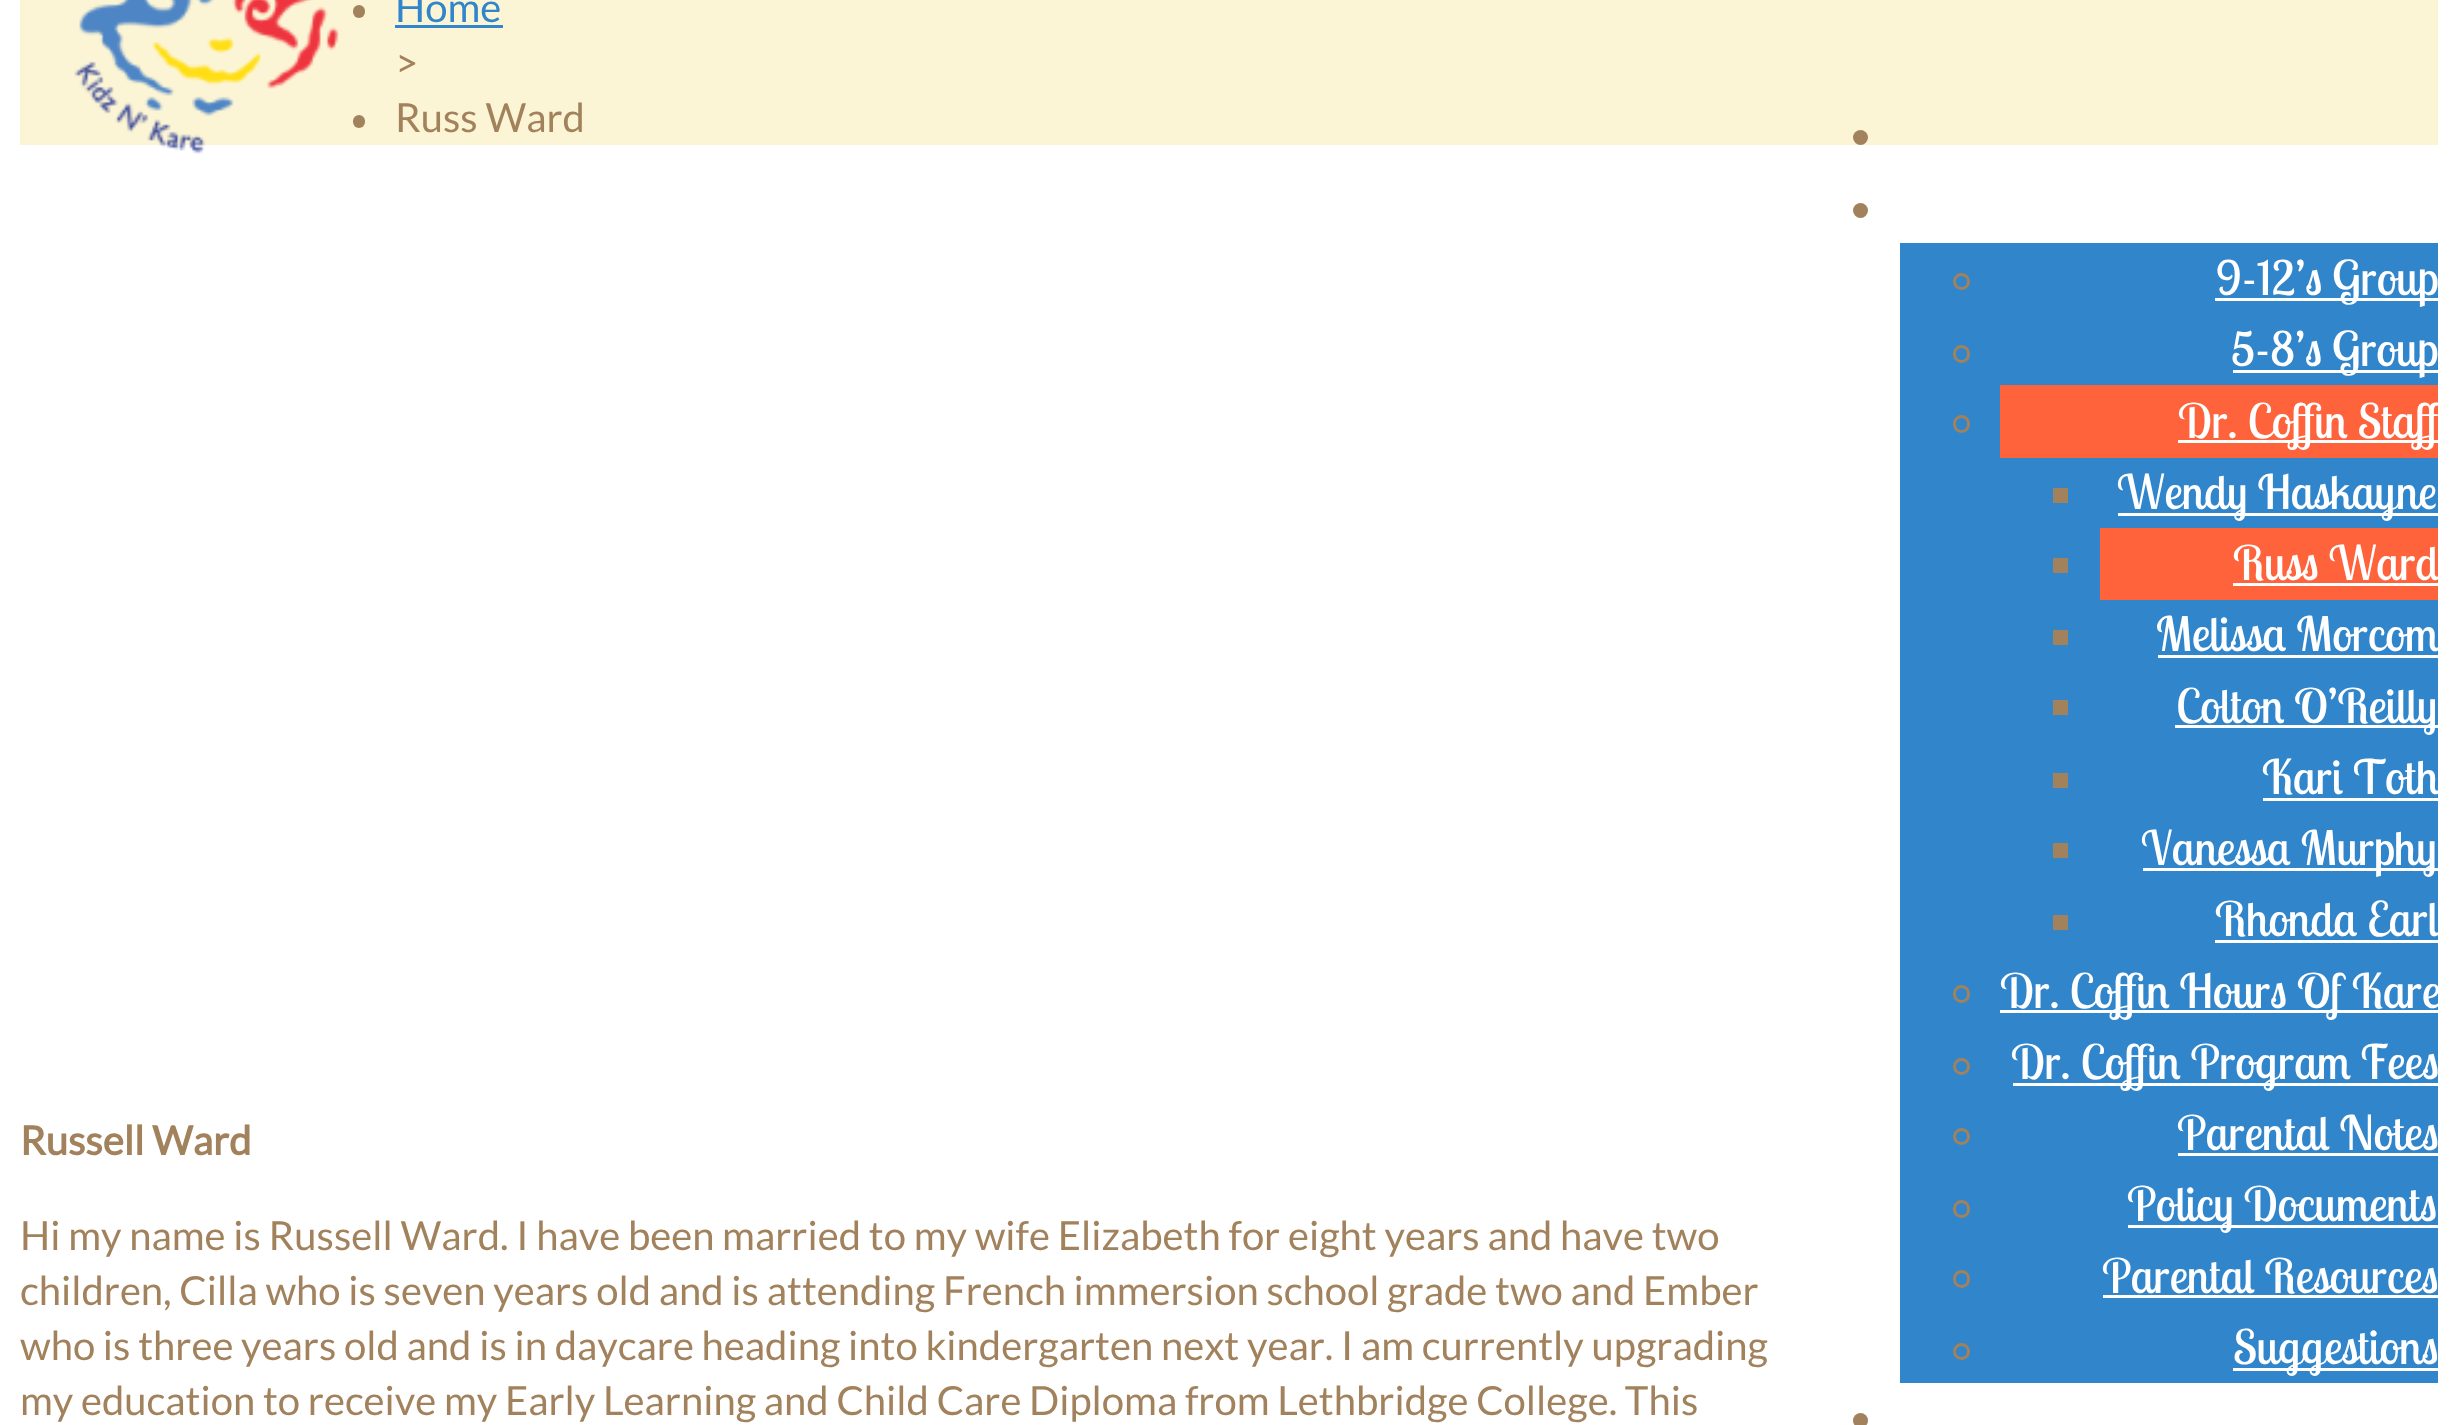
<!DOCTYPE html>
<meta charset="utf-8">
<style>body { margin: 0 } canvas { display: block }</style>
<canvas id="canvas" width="2457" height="1425"></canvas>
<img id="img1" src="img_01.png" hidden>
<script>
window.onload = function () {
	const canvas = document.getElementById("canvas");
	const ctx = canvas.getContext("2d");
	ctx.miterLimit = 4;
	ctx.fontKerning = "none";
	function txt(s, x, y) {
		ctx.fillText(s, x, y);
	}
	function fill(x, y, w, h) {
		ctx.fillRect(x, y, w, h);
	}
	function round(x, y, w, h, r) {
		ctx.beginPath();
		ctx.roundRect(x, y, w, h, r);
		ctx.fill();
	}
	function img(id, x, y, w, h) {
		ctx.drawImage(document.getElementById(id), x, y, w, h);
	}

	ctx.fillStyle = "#FFFFFF";
	fill(0, 0, 2457, 1425);
	ctx.fillStyle = "#FCF5D5";
	fill(20, 0, 2418, 145);
	ctx.fillStyle = "#A2825C";
	round(353, 5, 12, 13, 6);
	ctx.fillStyle = "#3185CB";
	fill(395, 25, 108, 3);
	ctx.fillStyle = "#A2825C";
	round(353, 115, 12, 13, 6);
	img("img1", 74, 0, 265, 154);
	ctx.beginPath();
	ctx.arc(1860.5, 137.5, 7.5, 0, Math.PI * 2);
	ctx.fill();
	ctx.beginPath();
	ctx.arc(1860.5, 210.5, 7.5, 0, Math.PI * 2);
	ctx.fill();
	ctx.fillStyle = "#3185CB";
	fill(1900, 243, 538, 1140);
	ctx.beginPath();
	ctx.arc(1961.5, 281.5, 7, 0, Math.PI * 2);
	ctx.strokeStyle = "#A2825C";
	ctx.lineWidth = 3;
	ctx.stroke();
	ctx.fillStyle = "#FFFFFF";
	fill(2215, 298, 223, 3);
	ctx.beginPath();
	ctx.roundRect(1954.5, 346.5, 14, 15, 7);
	ctx.stroke();
	fill(2233, 370, 205, 3);
	ctx.fillStyle = "#FF633C";
	fill(2000, 385, 438, 73);
	ctx.beginPath();
	ctx.roundRect(1954.5, 416.5, 14, 15, 7);
	ctx.stroke();
	ctx.fillStyle = "#FFFFFF";
	fill(2178, 440, 260, 3);
	ctx.fillStyle = "#A2825C";
	fill(2053, 488, 15, 15);
	ctx.fillStyle = "#FFFFFF";
	fill(2118, 513, 320, 3);
	ctx.fillStyle = "#FF633C";
	fill(2100, 528, 338, 72);
	ctx.fillStyle = "#A2825C";
	fill(2053, 558, 15, 15);
	ctx.fillStyle = "#FFFFFF";
	fill(2233, 583, 205, 3);
	ctx.fillStyle = "#A2825C";
	fill(2053, 630, 15, 15);
	ctx.fillStyle = "#FFFFFF";
	fill(2158, 655, 280, 3);
	ctx.fillStyle = "#A2825C";
	fill(2053, 700, 15, 15);
	ctx.fillStyle = "#FFFFFF";
	fill(2175, 725, 263, 3);
	ctx.fillStyle = "#A2825C";
	fill(2053, 773, 15, 15);
	ctx.fillStyle = "#FFFFFF";
	fill(2263, 798, 175, 3);
	ctx.fillStyle = "#A2825C";
	fill(2053, 843, 15, 15);
	ctx.fillStyle = "#FFFFFF";
	fill(2143, 868, 295, 3);
	ctx.fillStyle = "#A2825C";
	fill(2053, 915, 15, 15);
	ctx.fillStyle = "#FFFFFF";
	fill(2215, 940, 223, 3);
	ctx.beginPath();
	ctx.roundRect(1954.5, 986.5, 14, 15, 7);
	ctx.stroke();
	fill(2000, 1010, 438, 3);
	ctx.beginPath();
	ctx.arc(1961.5, 1066.5, 7, 0, Math.PI * 2);
	ctx.stroke();
	fill(2013, 1083, 425, 3);
	ctx.beginPath();
	ctx.arc(1961.5, 1136.5, 7, 0, Math.PI * 2);
	ctx.stroke();
	fill(2178, 1153, 260, 3);
	ctx.beginPath();
	ctx.roundRect(1954.5, 1201.5, 14, 15, 7);
	ctx.stroke();
	fill(2128, 1225, 310, 3);
	ctx.beginPath();
	ctx.roundRect(1954.5, 1271.5, 14, 15, 7);
	ctx.stroke();
	fill(2103, 1295, 335, 3);
	ctx.beginPath();
	ctx.arc(1961.5, 1351.5, 7, 0, Math.PI * 2);
	ctx.stroke();
	fill(2233, 1368, 205, 3);
	ctx.fillStyle = "#A2825C";
	ctx.beginPath();
	ctx.arc(1860.5, 1420.5, 7.5, 0, Math.PI * 2);
	ctx.fill();
	ctx.font = "40px Lato";
	ctx.fillStyle = "#3185CB";
	txt("Home", 395, 22);
	ctx.fillStyle = "#A2825C";
	txt(">", 395, 77);
	txt("Russ Ward", 395, 132);
	ctx.font = "bold 40px Lato";
	txt("Russell Ward", 20, 1155);
	ctx.font = "40px Lato";
	txt("Hi my name is Russell Ward. I have been married to my wife Elizabeth for eight years and have two", 20, 1250);
	txt("children, Cilla who is seven years old and is attending French immersion school grade two and Ember", 20, 1305);
	txt("who is three years old and is in daycare heading into kindergarten next year. I am currently upgrading", 20, 1360);
	txt("my education to receive my Early Learning and Child Care Diploma from Lethbridge College. This", 20, 1415);
	ctx.font = "47.5px Lobster Two";
	ctx.fillStyle = "#FFFFFF";
	txt("9-12’s Group", 2216, 295);
	txt("5-8’s Group", 2231, 366);
	txt("Dr. Coffin Staff", 2178, 438);
	txt("Wendy Haskayne", 2117, 509);
	txt("Russ Ward", 2233, 580);
	txt("Melissa Morcom", 2156, 651);
	txt("Colton O’Reilly", 2176, 723);
	txt("Kari Toth", 2262, 794);
	txt("Vanessa Murphy", 2141, 865);
	txt("Rhonda Earl", 2215, 936);
	txt("Dr. Coffin Hours Of Kare", 2000, 1008);
	txt("Dr. Coffin Program Fees", 2011, 1079);
	txt("Parental Notes", 2177, 1150);
	txt("Policy Documents", 2127, 1221);
	txt("Parental Resources", 2102, 1293);
	txt("Suggestions", 2233, 1364);
};
</script>
